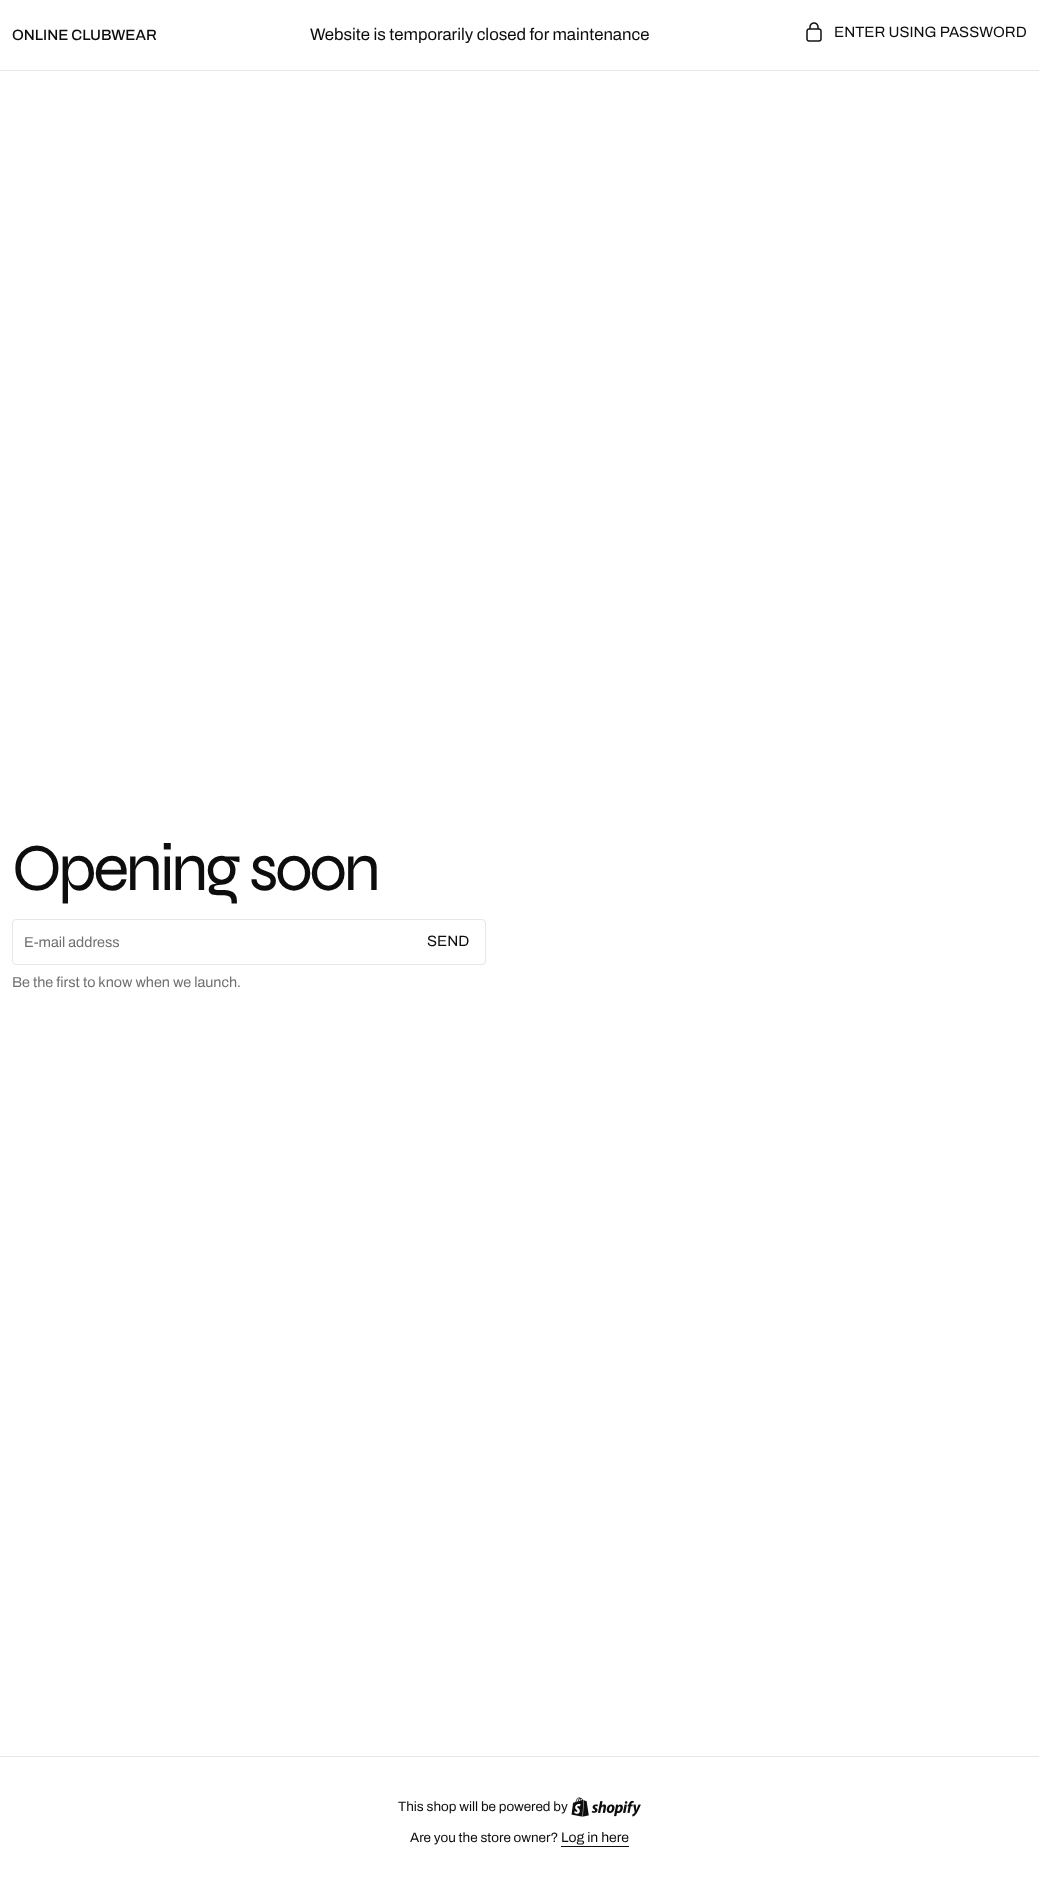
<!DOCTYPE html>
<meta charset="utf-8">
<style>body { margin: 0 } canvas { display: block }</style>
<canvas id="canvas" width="1054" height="1887"></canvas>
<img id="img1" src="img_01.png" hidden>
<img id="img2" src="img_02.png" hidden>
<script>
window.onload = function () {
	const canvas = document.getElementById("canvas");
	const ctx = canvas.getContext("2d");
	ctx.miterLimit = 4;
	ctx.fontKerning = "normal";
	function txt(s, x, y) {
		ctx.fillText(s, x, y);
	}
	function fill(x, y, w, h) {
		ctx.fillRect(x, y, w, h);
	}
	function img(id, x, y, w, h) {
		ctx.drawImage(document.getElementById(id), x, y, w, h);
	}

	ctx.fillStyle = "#FFFFFF";
	fill(0, 0, 1054, 1887);
	img("img1", 806, 22, 16, 20);
	ctx.fillStyle = "#E6E6E6";
	fill(0, 70, 1039, 1);
	fill(0, 1756, 1039, 1);
	ctx.beginPath();
	ctx.roundRect(12.5, 919.5, 473, 45, 3.5);
	ctx.strokeStyle = "#E6E6E6";
	ctx.stroke();
	img("img2", 571, 1797, 70, 20);
	ctx.fillStyle = "#0D0D0D";
	fill(561, 1846, 68, 1);
	ctx.font = "500 15px Archivo";
	txt("ONLINE CLUBWEAR", 12, 40);
	ctx.font = "16.8px Archivo";
	txt("Website is temporarily closed for maintenance", 310, 40);
	ctx.font = "15px Archivo";
	txt("ENTER USING PASSWORD", 834, 37);
	ctx.letterSpacing = "-3.4px";
	ctx.font = "67.25px Syne";
	txt("Opening soon", 12, 890);
	ctx.letterSpacing = "0px";
	ctx.font = "14.4px Archivo";
	ctx.fillStyle = "#707070";
	txt("E-mail address", 24, 947);
	ctx.font = "15px Archivo";
	ctx.fillStyle = "#0D0D0D";
	txt("SEND", 427, 946);
	ctx.font = "14.4px Archivo";
	ctx.fillStyle = "#707070";
	txt("Be the first to know when we launch.", 12, 987);
	ctx.font = "13.5px Archivo";
	ctx.fillStyle = "#0D0D0D";
	txt("This shop will be powered by", 398, 1811);
	txt("Are you the store owner?", 410, 1842);
	ctx.font = "14px Archivo";
	txt("Log in here", 561, 1842);
};
</script>
